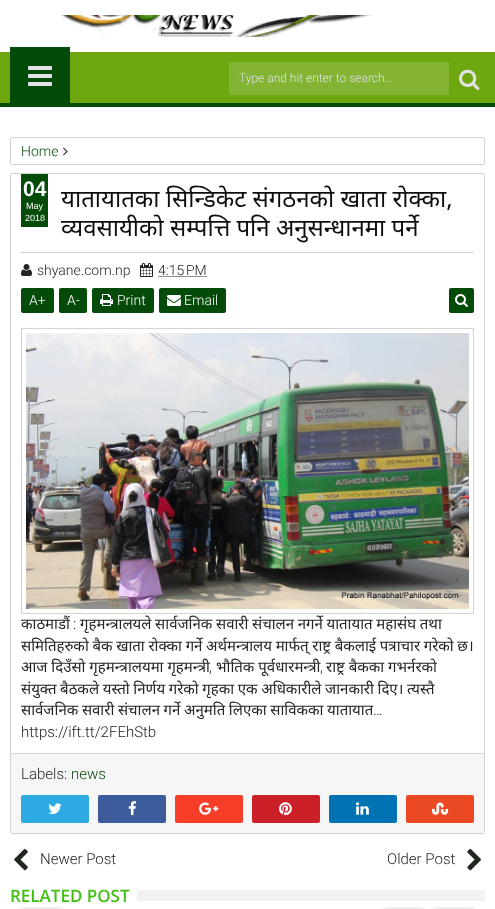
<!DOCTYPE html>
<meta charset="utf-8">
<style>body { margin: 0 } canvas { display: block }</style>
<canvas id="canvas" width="495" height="909"></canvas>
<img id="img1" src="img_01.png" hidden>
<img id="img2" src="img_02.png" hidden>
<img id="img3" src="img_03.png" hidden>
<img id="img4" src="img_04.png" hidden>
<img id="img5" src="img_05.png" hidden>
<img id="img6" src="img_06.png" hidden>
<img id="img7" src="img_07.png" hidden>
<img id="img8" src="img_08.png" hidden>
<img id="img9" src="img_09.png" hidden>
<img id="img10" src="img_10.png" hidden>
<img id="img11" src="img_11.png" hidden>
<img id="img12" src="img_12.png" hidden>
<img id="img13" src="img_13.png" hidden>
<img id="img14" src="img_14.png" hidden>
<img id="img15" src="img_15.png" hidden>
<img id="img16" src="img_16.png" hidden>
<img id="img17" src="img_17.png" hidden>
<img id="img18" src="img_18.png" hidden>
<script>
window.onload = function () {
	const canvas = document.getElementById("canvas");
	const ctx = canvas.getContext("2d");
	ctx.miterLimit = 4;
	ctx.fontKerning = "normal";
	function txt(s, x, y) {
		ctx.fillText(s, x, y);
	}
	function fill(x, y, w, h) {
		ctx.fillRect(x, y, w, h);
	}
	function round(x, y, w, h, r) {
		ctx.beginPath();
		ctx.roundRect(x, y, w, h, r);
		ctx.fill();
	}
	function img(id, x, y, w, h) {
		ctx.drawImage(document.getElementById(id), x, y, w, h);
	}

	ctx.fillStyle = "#FFFFFF";
	fill(0, 0, 495, 909);
	img("img1", 61, 15, 311, 22);
	ctx.fillStyle = "#6EA70F";
	fill(0, 52, 495, 51);
	ctx.fillStyle = "#044A08";
	fill(0, 103, 495, 4);
	fill(10, 47, 60, 56);
	img("img2", 28, 66, 24, 20);
	ctx.fillStyle = "#84B433";
	round(229, 62, 220, 33, 2);
	img("img3", 459, 69, 21, 22);
	ctx.beginPath();
	ctx.roundRect(10.5, 137.5, 474, 27, 1.5);
	ctx.strokeStyle = "#D3D3D3";
	ctx.stroke();
	img("img4", 63, 147, 5, 9);
	ctx.beginPath();
	ctx.roundRect(10.5, 173.5, 474, 660, 1.5);
	ctx.stroke();
	ctx.fillStyle = "#044A08";
	fill(21, 174, 27, 53);
	ctx.fillStyle = "#D3D3D3";
	fill(21, 252, 453, 1);
	img("img5", 21, 264, 11, 12);
	img("img6", 140, 263, 13, 14);
	ctx.beginPath();
	ctx.moveTo(158.5, 276.5);
	ctx.lineTo(207, 276.5);
	ctx.strokeStyle = "#222620";
	ctx.setLineDash([1, 1]);
	ctx.stroke();
	ctx.fillStyle = "#044A08";
	round(21, 288, 33, 25, 2);
	round(59, 288, 28, 25, 2);
	round(92, 288, 62, 25, 2);
	img("img7", 100, 294, 13, 12);
	round(159, 288, 67, 25, 2);
	img("img8", 167, 295, 14, 11);
	round(449, 288, 25, 25, 2);
	img("img9", 455, 294, 13, 13);
	ctx.strokeStyle = "#D3D3D3";
	ctx.setLineDash([]);
	ctx.strokeRect(21.5, 328.5, 452, 285);
	img("img10", 26, 333, 443, 276);
	ctx.fillStyle = "#F6F6F6";
	fill(11, 754, 473, 79);
	ctx.fillStyle = "#D3D3D3";
	fill(11, 753, 473, 1);
	ctx.fillStyle = "#2DAAE1";
	round(21, 795, 68, 28, 2);
	img("img11", 48, 803, 14, 11);
	ctx.fillStyle = "#3C5B9B";
	round(98, 795, 68, 28, 2);
	img("img12", 128, 801, 9, 15);
	ctx.fillStyle = "#F63E28";
	round(175, 795, 68, 28, 2);
	img("img13", 199, 802, 20, 13);
	ctx.fillStyle = "#CB2027";
	round(252, 795, 68, 28, 2);
	img("img14", 279, 802, 13, 14);
	ctx.fillStyle = "#0173B2";
	round(329, 795, 68, 28, 2);
	img("img15", 356, 802, 13, 13);
	ctx.fillStyle = "#EB4924";
	round(406, 795, 68, 28, 2);
	img("img16", 432, 802, 17, 13);
	img("img17", 14, 849, 14, 22);
	img("img18", 467, 849, 14, 22);
	ctx.fillStyle = "#F2F2F2";
	fill(137, 890, 348, 11);
	ctx.fillStyle = "rgba(0, 0, 0, 0.5)";
	ctx.filter = "blur(2.5px)";
	ctx.beginPath();
	ctx.roundRect(383, 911, 42, 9, 3);
	ctx.fill();
	ctx.filter = "none";
	ctx.filter = "blur(2.5px)";
	ctx.beginPath();
	ctx.roundRect(433, 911, 42, 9, 3);
	ctx.fill();
	ctx.filter = "none";
	ctx.filter = "blur(2.5px)";
	ctx.beginPath();
	ctx.roundRect(20, 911, 42, 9, 3);
	ctx.fill();
	ctx.filter = "none";
	ctx.font = "300 12px Roboto";
	ctx.fillStyle = "#E2E2E2";
	txt("Type and hit enter to search...", 239, 82);
	ctx.font = "300 14px Roboto";
	ctx.fillStyle = "#044A08";
	txt("Home", 21, 156);
	ctx.font = "bold 21px Liberation Sans";
	ctx.fillStyle = "#FFFFFF";
	txt("04", 23, 196);
	ctx.font = "9px Liberation Sans";
	txt("May", 26, 209);
	txt("2018", 25, 221);
	ctx.font = "24px Noto Sans";
	ctx.fillStyle = "#0E0E0E";
	txt("यातायातका सिन्डिकेट संगठनको खाता रोक्का,", 61, 207);
	txt("व्यवसायीको सम्पत्ति पनि अनुसन्धानमा पर्ने", 61, 236);
	ctx.font = "300 14px Roboto";
	ctx.fillStyle = "#222620";
	txt("shyane.com.np", 37, 275);
	txt("4:15 PM", 158, 275);
	ctx.fillStyle = "#FFFFFF";
	txt("A+", 29, 305);
	txt("A-", 67, 305);
	txt("Print", 117, 305);
	txt("Email", 184, 305);
	ctx.font = "15px Noto Sans";
	ctx.fillStyle = "#222620";
	txt("काठमाडौं", 21, 629);
	ctx.font = "300 15px Roboto";
	txt(":", 73, 629);
	ctx.wordSpacing = "-0.25px";
	ctx.font = "15px Noto Sans";
	txt("गृहमन्त्रालयले सार्वजनिक सवारी संचालन नगर्ने यातायात महासंघ तथा", 80, 629);
	txt("समितिहरुको बैक खाता रोक्का गर्ने अर्थमन्त्रालय मार्फत् राष्ट्र बैकलाई पत्राचार गरेको छ।", 21, 651);
	ctx.wordSpacing = "0px";
	txt("आज दिउँसो गृहमन्त्रालयमा गृहमन्त्री", 21, 672);
	ctx.font = "300 15px Roboto";
	txt(",", 209, 672);
	ctx.font = "15px Noto Sans";
	txt("भौतिक पूर्वधारमन्त्री", 216, 672);
	ctx.font = "300 15px Roboto";
	txt(",", 320, 672);
	ctx.font = "15px Noto Sans";
	txt("राष्ट्र बैकका गभर्नरको", 326, 672);
	ctx.wordSpacing = "-0.25px";
	txt("संयुक्त बैठकले यस्तो निर्णय गरेको गृहका एक अधिकारीले जानकारी दिए। त्यस्तै", 21, 694);
	txt("सार्वजनिक सवारी संचालन गर्ने अनुमति लिएका साविकका यातायात", 21, 715);
	ctx.wordSpacing = "0px";
	ctx.font = "300 15px Roboto";
	txt("…", 373, 715);
	txt("https://ift.tt/2FEhStb", 21, 737);
	txt("Labels:", 21, 779);
	ctx.fillStyle = "#044A08";
	txt("news", 71, 779);
	ctx.fillStyle = "#222620";
	txt("Newer Post", 40, 864);
	txt("Older Post", 387, 864);
	ctx.font = "600 17px Open Sans";
	ctx.fillStyle = "#42BF14";
	txt("RELATED POST", 10, 902);
};
</script>
